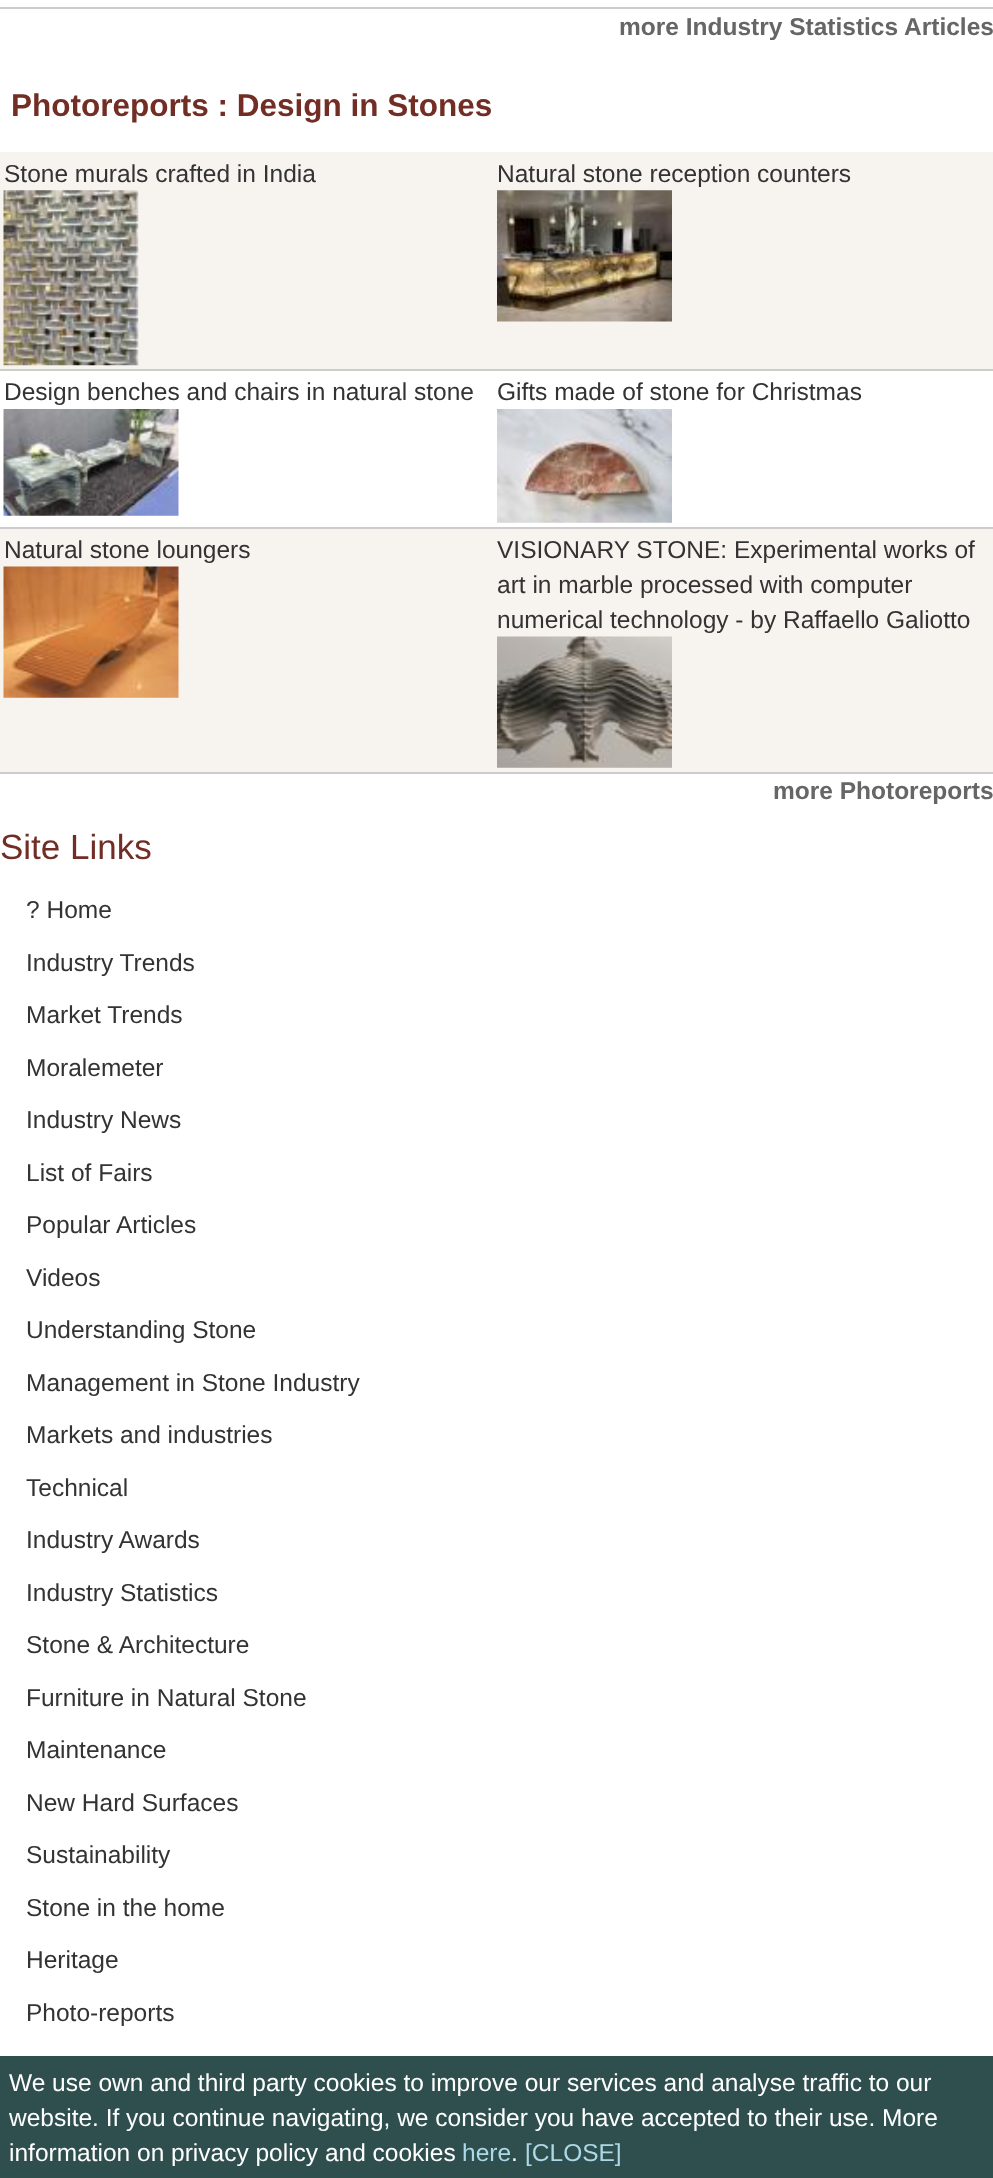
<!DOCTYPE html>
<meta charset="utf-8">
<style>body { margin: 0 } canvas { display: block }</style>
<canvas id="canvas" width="993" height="2178"></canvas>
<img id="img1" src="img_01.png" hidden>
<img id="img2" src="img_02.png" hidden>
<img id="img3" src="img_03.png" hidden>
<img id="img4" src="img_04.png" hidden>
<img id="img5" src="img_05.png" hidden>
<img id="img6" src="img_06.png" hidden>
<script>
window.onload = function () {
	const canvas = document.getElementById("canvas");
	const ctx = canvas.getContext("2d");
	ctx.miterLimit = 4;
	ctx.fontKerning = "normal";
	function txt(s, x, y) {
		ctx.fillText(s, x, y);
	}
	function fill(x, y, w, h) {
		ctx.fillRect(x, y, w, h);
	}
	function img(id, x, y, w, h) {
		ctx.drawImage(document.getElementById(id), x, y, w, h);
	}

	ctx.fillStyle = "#FFFFFF";
	fill(0, 0, 993, 2178);
	ctx.fillStyle = "#CCCCCC";
	fill(0, 7, 993, 2);
	ctx.fillStyle = "#F7F3EF";
	fill(0, 152, 993, 217);
	ctx.fillStyle = "#CCCCCC";
	fill(0, 369, 993, 2);
	img("img1", 3, 190, 136, 176);
	img("img2", 497, 190, 175, 132);
	fill(0, 527, 993, 2);
	img("img3", 3, 409, 176, 107);
	img("img4", 497, 409, 175, 114);
	ctx.fillStyle = "#F7F3EF";
	fill(0, 529, 993, 243);
	ctx.fillStyle = "#CCCCCC";
	fill(0, 772, 993, 2);
	img("img5", 3, 566, 176, 132);
	img("img6", 497, 636, 175, 132);
	ctx.fillStyle = "#2F4F4F";
	fill(0, 2056, 993, 122);
	ctx.font = "bold 24.5px Liberation Sans";
	ctx.fillStyle = "#666666";
	txt("more Industry Statistics Articles", 619, 35);
	ctx.font = "bold 31.5px Liberation Sans";
	ctx.fillStyle = "#722D24";
	txt("Photoreports : Design in Stones", 11, 116);
	ctx.font = "24.5px Liberation Sans";
	ctx.fillStyle = "#333333";
	txt("Stone murals crafted in India", 4, 182);
	txt("Natural stone reception counters", 497, 182);
	txt("Design benches and chairs in natural stone", 4, 400);
	txt("Gifts made of stone for Christmas", 497, 400);
	txt("Natural stone loungers", 4, 558);
	txt("VISIONARY STONE: Experimental works of", 497, 558);
	txt("art in marble processed with computer", 497, 593);
	txt("numerical technology - by Raffaello Galiotto", 497, 628);
	ctx.font = "bold 24.5px Liberation Sans";
	ctx.fillStyle = "#666666";
	txt("more Photoreports", 773, 799);
	ctx.font = "35px Liberation Sans";
	ctx.fillStyle = "#722D24";
	txt("Site Links", 0, 859);
	ctx.font = "24.5px Liberation Sans";
	ctx.fillStyle = "#333333";
	txt("? Home", 26, 918);
	txt("Industry Trends", 26, 971);
	txt("Market Trends", 26, 1023);
	txt("Moralemeter", 26, 1076);
	txt("Industry News", 26, 1128);
	txt("List of Fairs", 26, 1181);
	txt("Popular Articles", 26, 1233);
	txt("Videos", 26, 1286);
	txt("Understanding Stone", 26, 1338);
	txt("Management in Stone Industry", 26, 1391);
	txt("Markets and industries", 26, 1443);
	txt("Technical", 26, 1496);
	txt("Industry Awards", 26, 1548);
	txt("Industry Statistics", 26, 1601);
	txt("Stone & Architecture", 26, 1653);
	txt("Furniture in Natural Stone", 26, 1706);
	txt("Maintenance", 26, 1758);
	txt("New Hard Surfaces", 26, 1811);
	txt("Sustainability", 26, 1863);
	txt("Stone in the home", 26, 1916);
	txt("Heritage", 26, 1968);
	txt("Photo-reports", 26, 2021);
	ctx.fillStyle = "#FFFFFF";
	txt("We use own and third party cookies to improve our services and analyse traffic to our", 9, 2091);
	txt("website. If you continue navigating, we consider you have accepted to their use. More", 9, 2126);
	txt("information on privacy policy and cookies", 9, 2161);
	ctx.fillStyle = "#ADD8E6";
	txt("here", 462, 2161);
	ctx.fillStyle = "#FFFFFF";
	txt(".", 511, 2161);
	ctx.fillStyle = "#ADD8E6";
	txt("[CLOSE]", 525, 2161);
};
</script>
